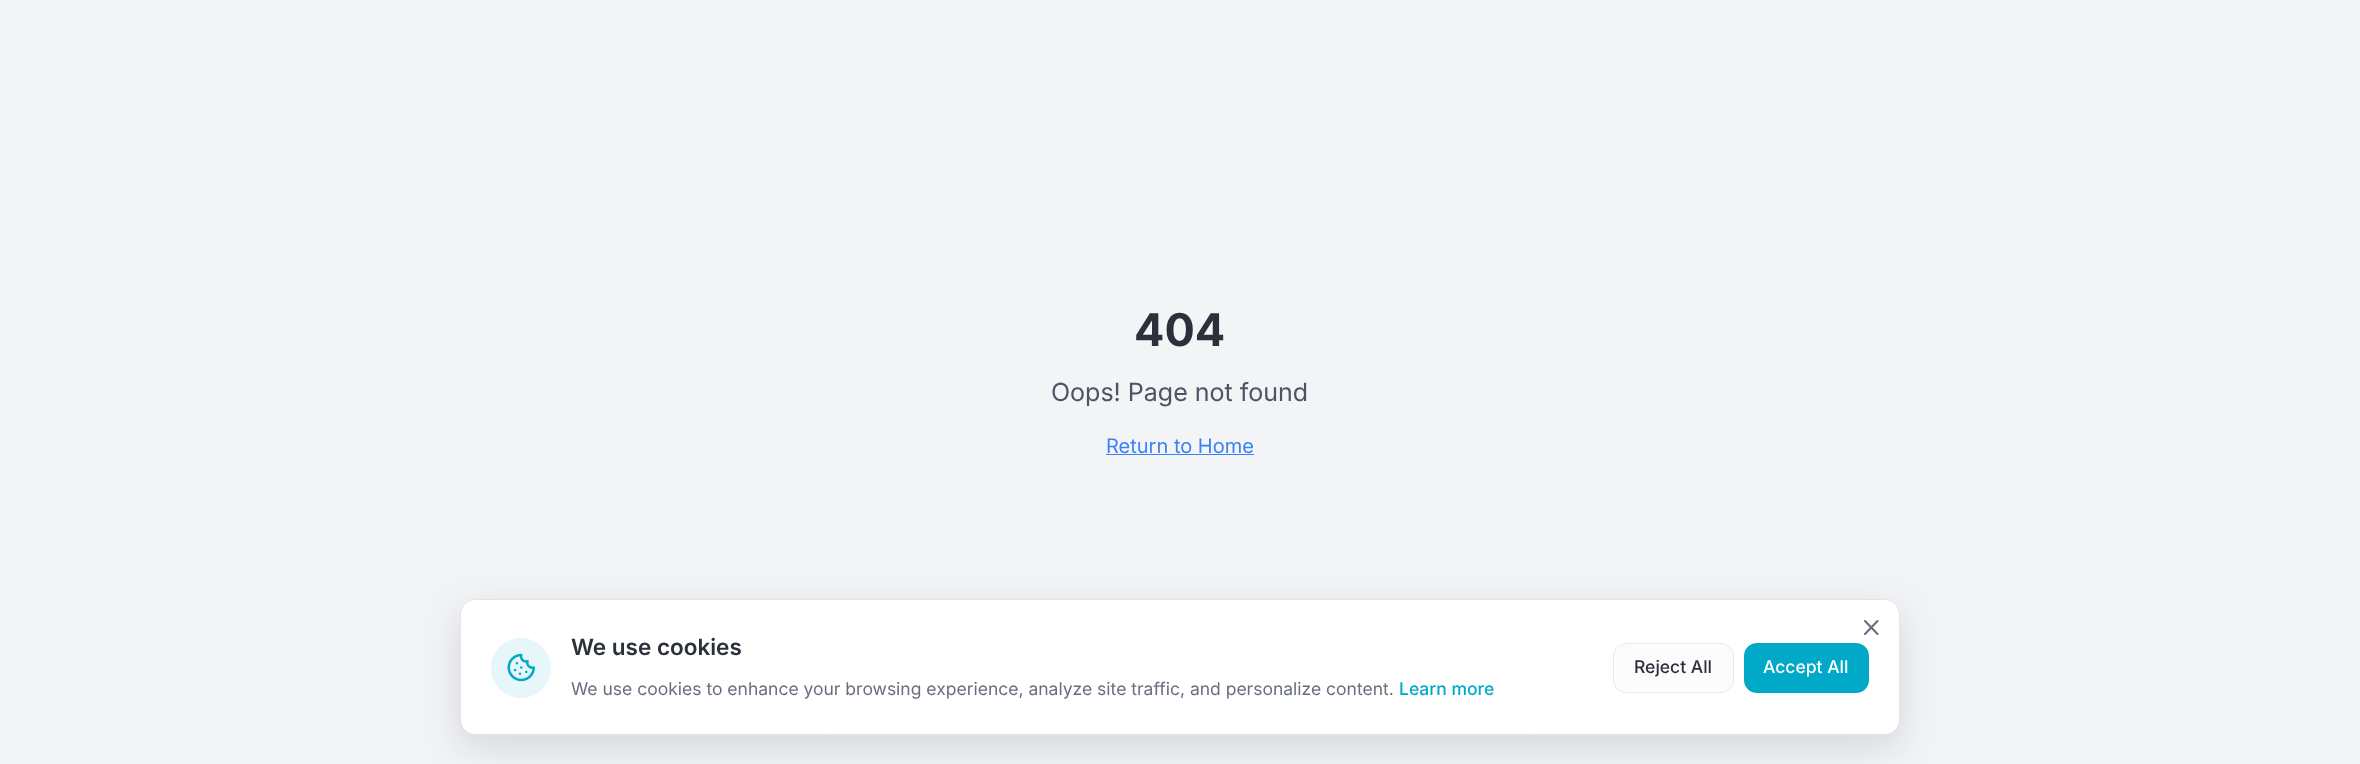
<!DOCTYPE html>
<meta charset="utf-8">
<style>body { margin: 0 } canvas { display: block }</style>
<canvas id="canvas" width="2360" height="764"></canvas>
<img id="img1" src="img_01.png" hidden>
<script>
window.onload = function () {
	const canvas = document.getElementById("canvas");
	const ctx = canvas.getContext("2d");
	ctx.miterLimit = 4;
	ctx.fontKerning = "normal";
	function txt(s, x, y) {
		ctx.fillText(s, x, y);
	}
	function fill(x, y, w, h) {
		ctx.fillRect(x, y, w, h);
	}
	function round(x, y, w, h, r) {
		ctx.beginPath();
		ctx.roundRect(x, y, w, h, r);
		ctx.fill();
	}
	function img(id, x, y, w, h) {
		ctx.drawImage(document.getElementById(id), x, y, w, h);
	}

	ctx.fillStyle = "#F3F4F6";
	fill(0, 0, 2360, 764);
	ctx.fillStyle = "#3B82F6";
	fill(1106, 454, 148, 1);
	ctx.fillStyle = "rgba(43, 48, 59, 0.15)";
	ctx.filter = "blur(19px)";
	ctx.beginPath();
	ctx.roundRect(460, 611, 1440, 137, 15);
	ctx.fill();
	ctx.filter = "none";
	ctx.fillStyle = "#FFFFFF";
	ctx.beginPath();
	ctx.roundRect(460.5, 599.5, 1439, 135, 14.5);
	ctx.fill();
	ctx.strokeStyle = "#E2E4E9";
	ctx.stroke();
	ctx.beginPath();
	ctx.moveTo(1877.5, 621);
	ctx.lineTo(1865, 634);
	ctx.moveTo(1865, 621);
	ctx.lineTo(1877.5, 634);
	ctx.strokeStyle = "#676F7E";
	ctx.lineWidth = 2.1;
	ctx.lineCap = "round";
	ctx.lineJoin = "round";
	ctx.stroke();
	ctx.fillStyle = "#E6F6F9";
	ctx.beginPath();
	ctx.arc(521, 668, 30, 0, Math.PI * 2);
	ctx.fill();
	img("img1", 507, 653, 28, 29);
	ctx.fillStyle = "#FCFCFC";
	ctx.beginPath();
	ctx.roundRect(1613.5, 643.5, 120, 49, 12.5);
	ctx.fill();
	ctx.strokeStyle = "#E8EAEE";
	ctx.lineWidth = 1;
	ctx.lineJoin = "miter";
	ctx.stroke();
	ctx.fillStyle = "#00A9C7";
	round(1744, 643, 125, 50, 13);
	ctx.font = "bold 45px Inter";
	ctx.fillStyle = "#2B303B";
	txt("404", 1134, 346);
	ctx.font = "25px Inter";
	ctx.fillStyle = "#4B5563";
	txt("Oops! Page not found", 1051, 401);
	ctx.font = "20px Inter";
	ctx.fillStyle = "#3B82F6";
	txt("Return to Home", 1106, 453);
	ctx.font = "600 22.5px Inter";
	ctx.fillStyle = "#2B303B";
	txt("We use cookies", 571, 655);
	ctx.font = "17.5px Inter";
	ctx.fillStyle = "#676F7E";
	txt("We use cookies to enhance your browsing experience, analyze site traffic, and personalize content.", 571, 695);
	ctx.font = "500 17.5px Inter";
	ctx.fillStyle = "#00A9C7";
	txt("Learn more", 1399, 695);
	ctx.fillStyle = "#2B303B";
	txt("Reject All", 1634, 673);
	ctx.fillStyle = "#FFFFFF";
	txt("Accept All", 1763, 673);
};
</script>
